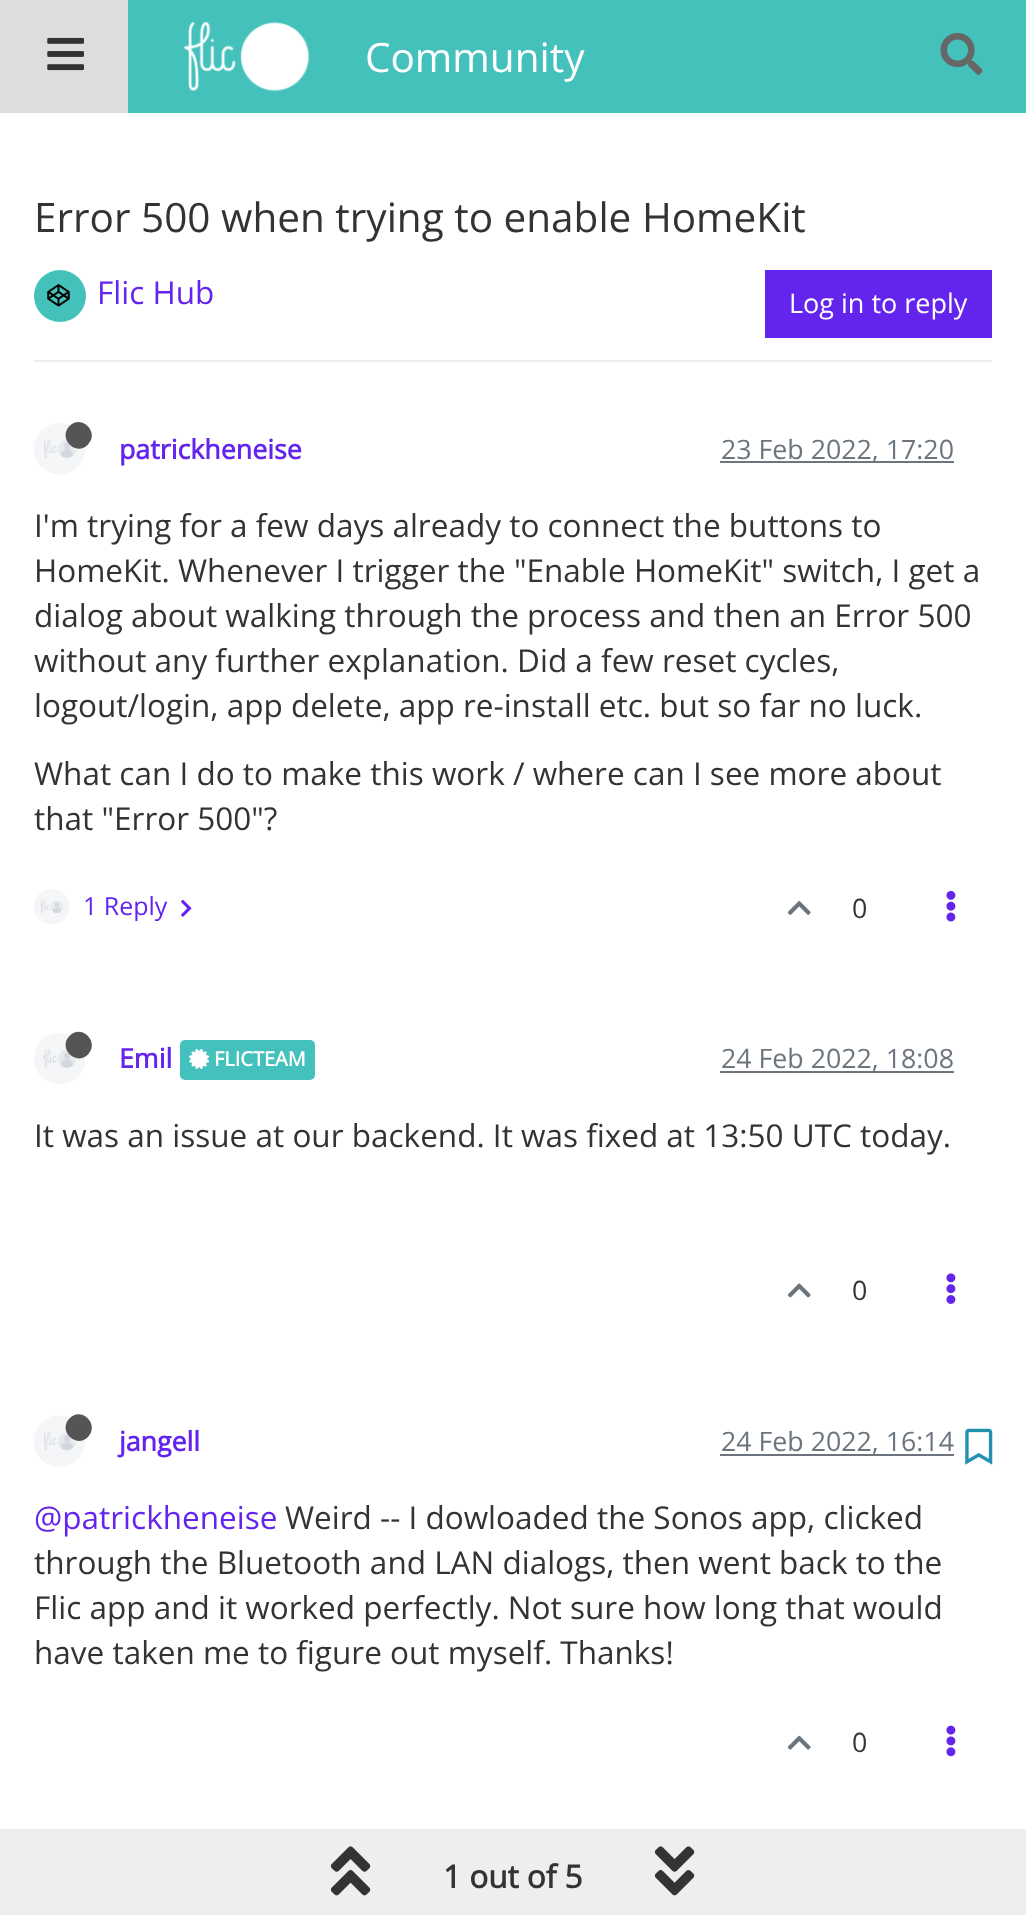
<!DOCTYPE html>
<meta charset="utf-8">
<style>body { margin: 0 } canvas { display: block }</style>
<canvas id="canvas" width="1026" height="1915"></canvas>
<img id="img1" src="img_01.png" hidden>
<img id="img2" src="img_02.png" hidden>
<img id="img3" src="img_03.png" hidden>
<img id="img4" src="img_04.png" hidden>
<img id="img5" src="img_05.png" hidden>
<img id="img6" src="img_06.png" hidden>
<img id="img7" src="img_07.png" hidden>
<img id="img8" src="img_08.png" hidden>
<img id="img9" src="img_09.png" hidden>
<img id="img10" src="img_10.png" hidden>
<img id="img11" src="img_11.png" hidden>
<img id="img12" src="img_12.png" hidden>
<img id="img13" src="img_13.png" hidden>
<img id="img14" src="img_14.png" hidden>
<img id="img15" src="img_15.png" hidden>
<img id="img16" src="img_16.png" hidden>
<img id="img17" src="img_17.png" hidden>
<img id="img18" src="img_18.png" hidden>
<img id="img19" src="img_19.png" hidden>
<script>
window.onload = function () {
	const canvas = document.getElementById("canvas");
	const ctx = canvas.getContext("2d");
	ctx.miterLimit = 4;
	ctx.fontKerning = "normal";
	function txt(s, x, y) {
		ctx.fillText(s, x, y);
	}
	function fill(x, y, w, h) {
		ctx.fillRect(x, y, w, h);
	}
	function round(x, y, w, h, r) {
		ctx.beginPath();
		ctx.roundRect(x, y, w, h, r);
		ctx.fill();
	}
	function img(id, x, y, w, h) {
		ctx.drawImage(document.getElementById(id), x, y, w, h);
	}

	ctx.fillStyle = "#FFFFFF";
	fill(0, 0, 1026, 1915);
	ctx.fillStyle = "#45C1BC";
	fill(128, 0, 898, 113);
	ctx.fillStyle = "#DDDDDD";
	fill(0, 0, 128, 113);
	img("img1", 47, 37, 37, 34);
	img("img2", 183, 21, 127, 71);
	img("img3", 940, 33, 43, 42);
	ctx.fillStyle = "#EEEEEE";
	fill(34, 360, 958, 2);
	ctx.fillStyle = "#45C1BC";
	ctx.beginPath();
	ctx.arc(60, 296, 26, 0, Math.PI * 2);
	ctx.fill();
	img("img4", 47, 284, 23, 23);
	ctx.fillStyle = "#6324EE";
	fill(765, 270, 227, 68);
	img("img5", 34, 423, 51, 52);
	ctx.fillStyle = "#555555";
	ctx.beginPath();
	ctx.moveTo(69.5, 426);
	ctx.bezierCurveTo(81.5, 414, 100, 432.5, 88, 444.5);
	ctx.bezierCurveTo(76, 457, 57.5, 438.5, 69.5, 426);
	ctx.closePath();
	ctx.fill();
	ctx.fillStyle = "#6C757D";
	fill(720, 461, 234, 2);
	img("img6", 34, 889, 36, 36);
	img("img7", 181, 899, 11, 18);
	img("img8", 787, 901, 24, 14);
	img("img9", 946, 890, 10, 32);
	img("img10", 34, 1033, 51, 51);
	ctx.fillStyle = "#555555";
	ctx.beginPath();
	ctx.moveTo(69.5, 1036);
	ctx.bezierCurveTo(81.5, 1023.5, 100, 1042, 88, 1054.5);
	ctx.bezierCurveTo(76, 1066.5, 57.5, 1048, 69.5, 1036);
	ctx.closePath();
	ctx.fill();
	ctx.fillStyle = "#45C1BD";
	round(180, 1040, 135, 40, 5);
	img("img11", 189, 1048, 21, 21);
	ctx.fillStyle = "#6C757D";
	fill(720, 1071, 234, 2);
	img("img12", 787, 1283, 24, 15);
	img("img13", 946, 1273, 10, 31);
	img("img14", 34, 1415, 51, 52);
	ctx.fillStyle = "#555555";
	ctx.beginPath();
	ctx.moveTo(69.5, 1418.5);
	ctx.bezierCurveTo(81.5, 1406, 100, 1424.5, 88, 1437);
	ctx.bezierCurveTo(76, 1449, 57.5, 1430.5, 69.5, 1418.5);
	ctx.closePath();
	ctx.fill();
	ctx.fillStyle = "#6C757D";
	fill(720, 1454, 234, 2);
	img("img15", 965, 1428, 28, 37);
	img("img16", 787, 1735, 24, 15);
	img("img17", 946, 1725, 10, 32);
	ctx.fillStyle = "#EEEEEE";
	fill(0, 1829, 1026, 86);
	img("img18", 330, 1846, 41, 50);
	img("img19", 654, 1846, 41, 50);
	ctx.font = "40.5px Open Sans";
	ctx.fillStyle = "#FFFFFF";
	txt("Community", 365, 72);
	ctx.fillStyle = "#333333";
	txt("Error 500 when trying to enable HomeKit", 34, 232);
	ctx.font = "31.5px Open Sans";
	ctx.fillStyle = "#6324EE";
	txt("Flic Hub", 97, 304);
	ctx.font = "27px Open Sans";
	ctx.fillStyle = "#FFFFFF";
	txt("Log in to reply", 789, 313);
	ctx.font = "bold 26.75px Open Sans";
	ctx.fillStyle = "#6324EE";
	txt("patrickheneise", 119, 459);
	ctx.font = "26.75px Open Sans";
	ctx.fillStyle = "#6C757D";
	txt("23 Feb 2022, 17:20", 721, 459);
	ctx.font = "31.5px Open Sans";
	ctx.fillStyle = "#333333";
	txt("I'm trying for a few days already to connect the buttons to", 34, 537);
	txt("HomeKit. Whenever I trigger the \"Enable HomeKit\" switch, I get a", 34, 582);
	txt("dialog about walking through the process and then an Error 500", 34, 627);
	txt("without any further explanation. Did a few reset cycles,", 34, 672);
	txt("logout/login, app delete, app re-install etc. but so far no luck.", 34, 717);
	txt("What can I do to make this work / where can I see more about", 34, 785);
	txt("that \"Error 500\"?", 34, 830);
	ctx.font = "25px Open Sans";
	ctx.fillStyle = "#6324EE";
	txt("1 Reply", 83, 915);
	ctx.font = "26.75px Open Sans";
	ctx.fillStyle = "#333333";
	txt("0", 852, 918);
	ctx.font = "bold 26.75px Open Sans";
	ctx.fillStyle = "#6324EE";
	txt("Emil", 119, 1068);
	ctx.font = "bold 20px Open Sans";
	ctx.fillStyle = "#FFFFFF";
	txt("FLICTEAM", 214, 1066);
	ctx.font = "26.75px Open Sans";
	ctx.fillStyle = "#6C757D";
	txt("24 Feb 2022, 18:08", 721, 1068);
	ctx.font = "31.5px Open Sans";
	ctx.fillStyle = "#333333";
	txt("It was an issue at our backend. It was fixed at 13:50 UTC today.", 34, 1147);
	ctx.font = "26.75px Open Sans";
	txt("0", 852, 1300);
	ctx.font = "bold 26.75px Open Sans";
	ctx.fillStyle = "#6324EE";
	txt("jangell", 119, 1451);
	ctx.font = "26.75px Open Sans";
	ctx.fillStyle = "#6C757D";
	txt("24 Feb 2022, 16:14", 721, 1451);
	ctx.font = "31.5px Open Sans";
	ctx.fillStyle = "#6324EE";
	txt("@patrickheneise", 34, 1529);
	ctx.fillStyle = "#333333";
	txt("Weird -- I dowloaded the Sonos app, clicked", 285, 1529);
	txt("through the Bluetooth and LAN dialogs, then went back to the", 34, 1574);
	txt("Flic app and it worked perfectly. Not sure how long that would", 34, 1619);
	txt("have taken me to figure out myself. Thanks!", 34, 1664);
	ctx.font = "26.75px Open Sans";
	txt("0", 852, 1752);
	ctx.font = "bold 31.5px Open Sans";
	txt("1 out of 5", 443, 1888);
};
</script>
